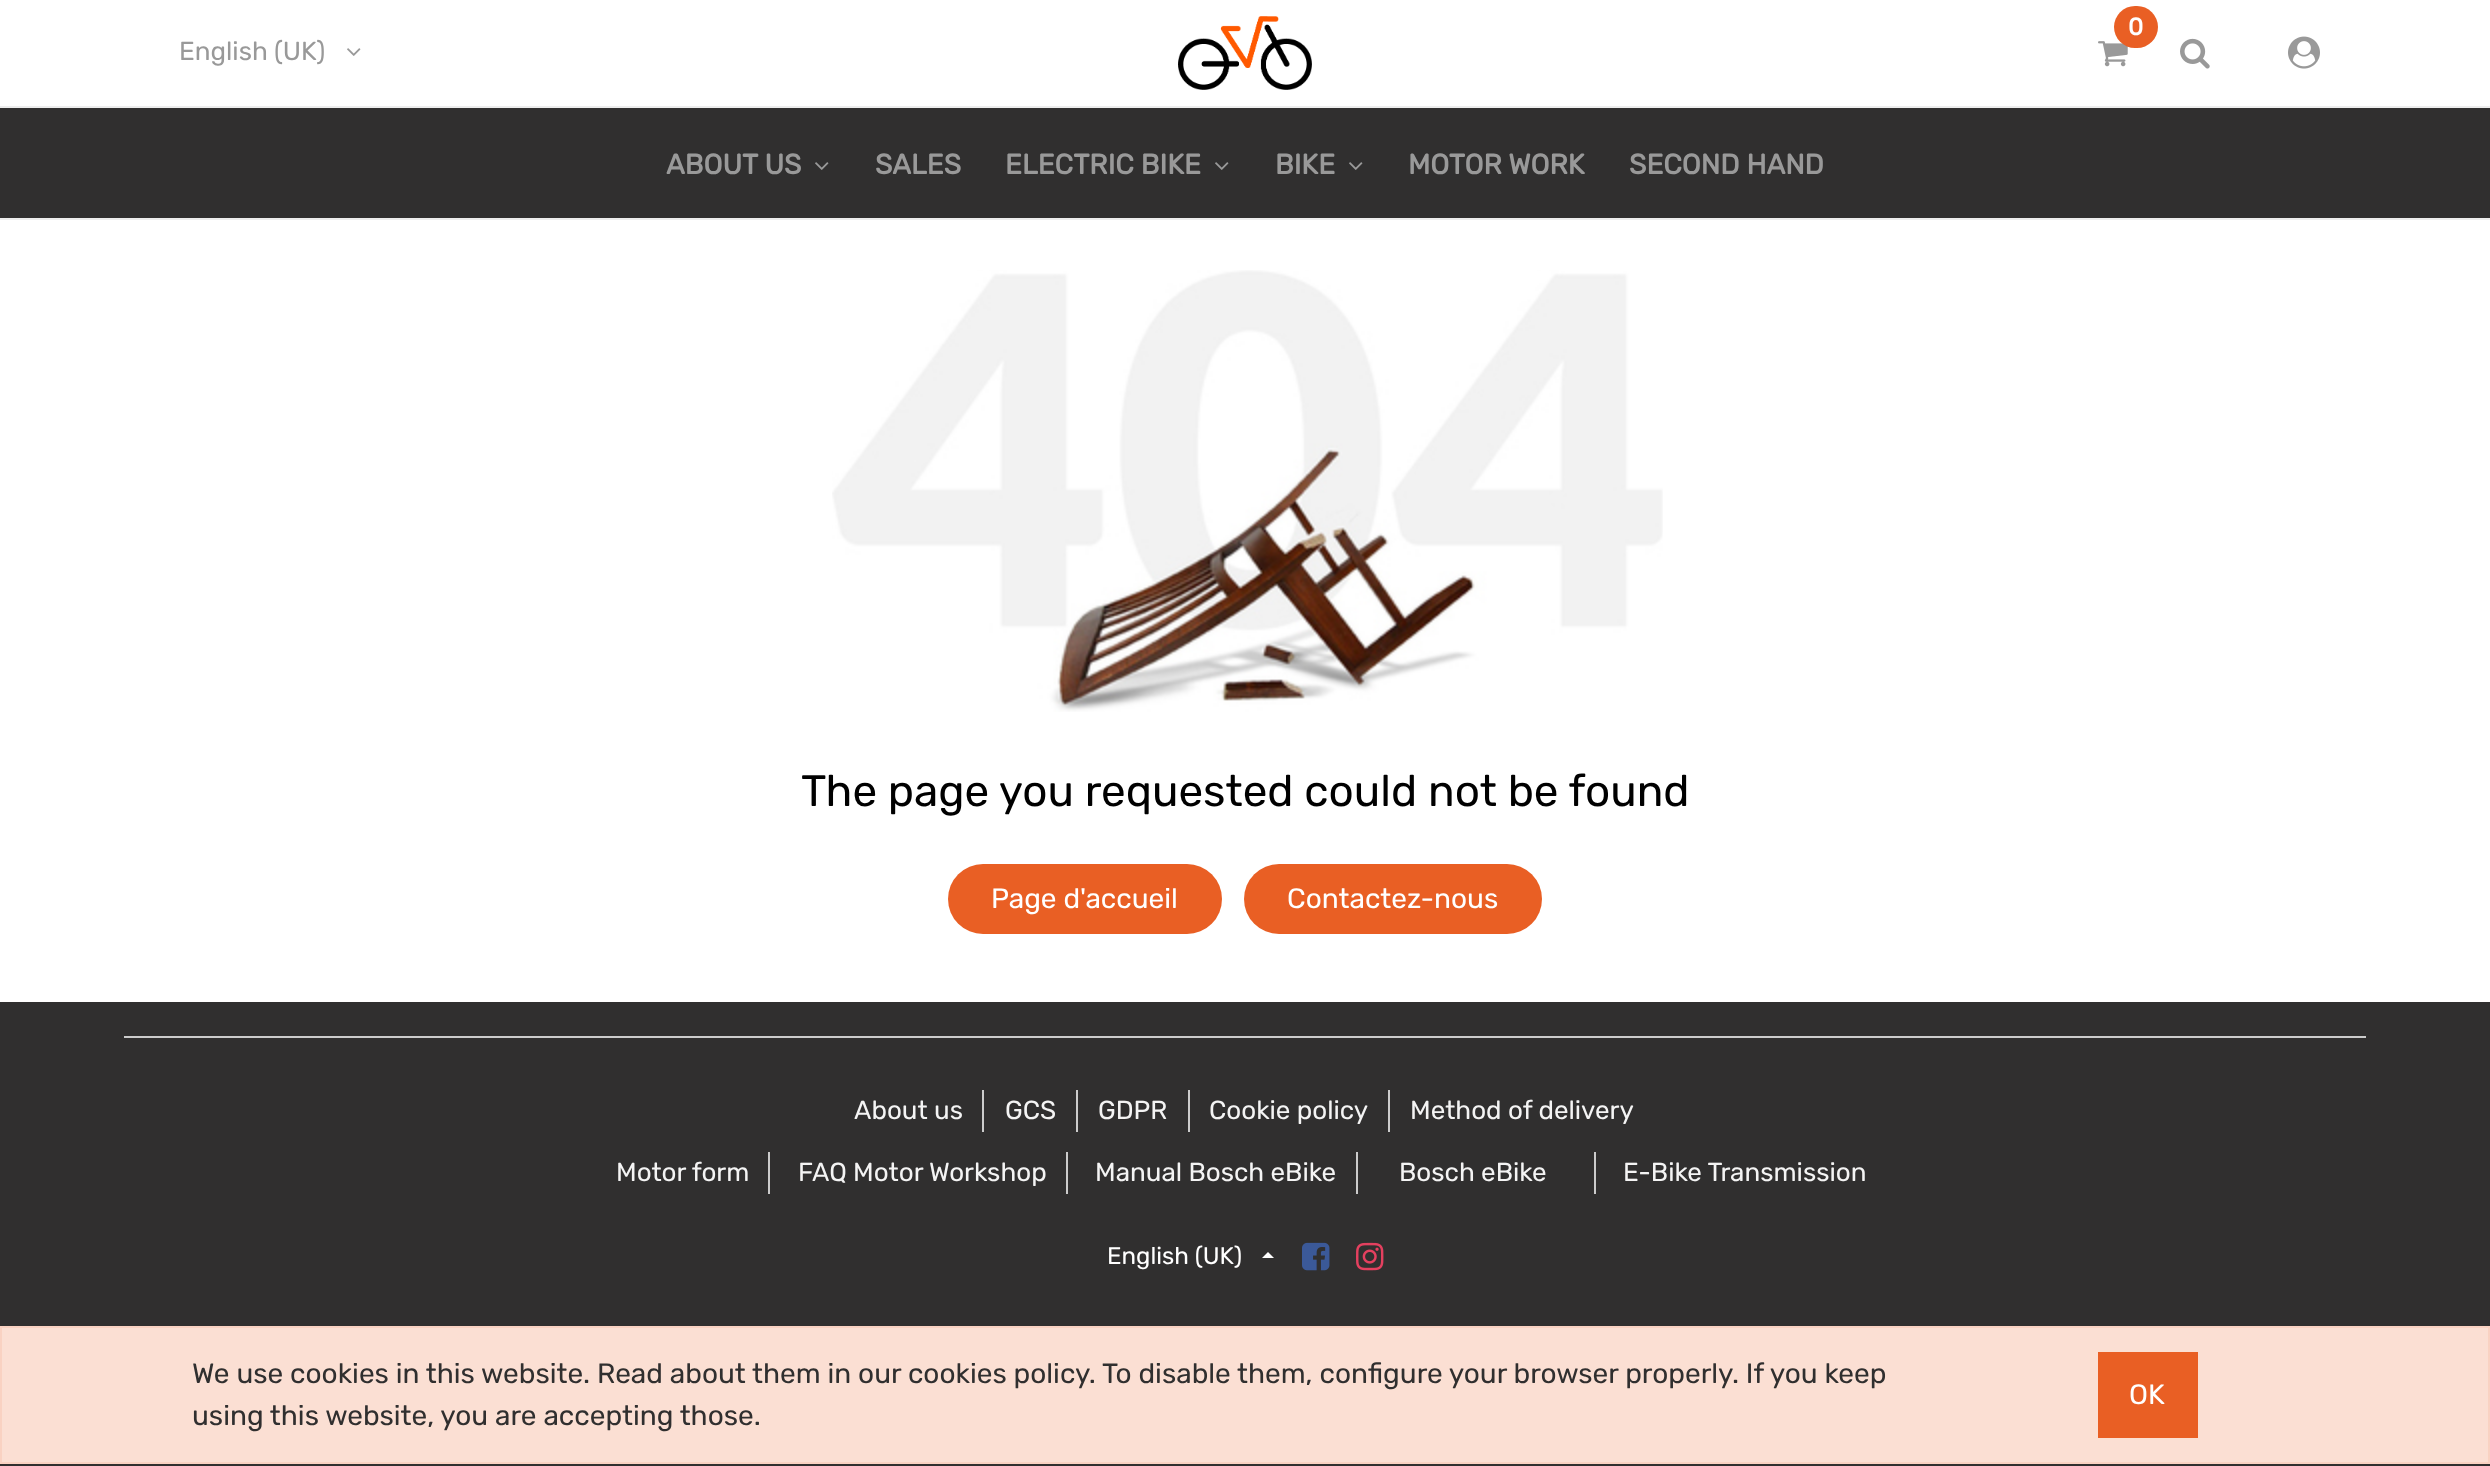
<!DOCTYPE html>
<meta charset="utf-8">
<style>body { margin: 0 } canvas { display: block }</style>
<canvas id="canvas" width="2490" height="1466"></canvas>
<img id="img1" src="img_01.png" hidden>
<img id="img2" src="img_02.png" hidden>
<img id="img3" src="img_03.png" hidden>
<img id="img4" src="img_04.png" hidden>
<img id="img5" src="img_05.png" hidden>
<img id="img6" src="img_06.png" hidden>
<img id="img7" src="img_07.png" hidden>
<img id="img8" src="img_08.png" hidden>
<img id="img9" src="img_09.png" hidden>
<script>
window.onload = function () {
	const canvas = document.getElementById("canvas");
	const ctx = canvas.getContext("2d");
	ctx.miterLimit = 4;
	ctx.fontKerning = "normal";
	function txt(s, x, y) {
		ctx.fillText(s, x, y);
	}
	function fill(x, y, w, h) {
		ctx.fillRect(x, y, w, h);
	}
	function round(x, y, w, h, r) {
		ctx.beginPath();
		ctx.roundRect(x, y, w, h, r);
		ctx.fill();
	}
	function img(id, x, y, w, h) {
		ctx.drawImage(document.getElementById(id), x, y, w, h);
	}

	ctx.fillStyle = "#FFFFFF";
	fill(0, 0, 2490, 1466);
	img("img1", 1178, 16, 134, 74);
	img("img2", 2098, 41, 30, 26);
	ctx.fillStyle = "#E95F24";
	round(2114, 6, 44, 42, 21);
	img("img3", 2180, 38, 30, 31);
	img("img4", 2288, 36, 32, 33);
	img("img5", 347, 48, 14, 8);
	ctx.fillStyle = "#302F2F";
	fill(0, 108, 2490, 110);
	ctx.fillStyle = "#EDEDED";
	fill(0, 106, 2490, 2);
	fill(0, 218, 2490, 2);
	img("img6", 815, 162, 14, 8);
	img("img6", 1215, 162, 14, 8);
	img("img6", 1349, 162, 14, 8);
	img("img7", 832, 270, 831, 442);
	ctx.fillStyle = "#E95F24";
	round(948, 864, 274, 70, 35);
	round(1244, 864, 298, 70, 35);
	ctx.fillStyle = "#302F2F";
	fill(0, 1002, 2490, 464);
	ctx.fillStyle = "#CCCCCC";
	fill(124, 1036, 2242, 2);
	fill(982, 1090, 2, 42);
	fill(1076, 1090, 2, 42);
	fill(1188, 1090, 2, 42);
	fill(1388, 1090, 2, 42);
	fill(768, 1152, 2, 42);
	fill(1066, 1152, 2, 42);
	fill(1356, 1152, 2, 42);
	fill(1594, 1152, 2, 42);
	ctx.fillStyle = "#FFFFFF";
	ctx.beginPath();
	ctx.moveTo(1274, 1258);
	ctx.lineTo(1262, 1258);
	ctx.lineTo(1268, 1252);
	ctx.closePath();
	ctx.fill();
	img("img8", 1302, 1242, 28, 29);
	img("img9", 1356, 1242, 28, 29);
	ctx.fillStyle = "#FBDFD3";
	ctx.beginPath();
	ctx.rect(1, 1327, 2488, 136);
	ctx.fill();
	ctx.strokeStyle = "#F9D2C2";
	ctx.lineWidth = 2;
	ctx.stroke();
	ctx.fillStyle = "#E95F24";
	fill(2098, 1352, 100, 86);
	ctx.font = "bold 24px Rubik";
	ctx.fillStyle = "#FFFFFF";
	txt("0", 2128, 35);
	ctx.font = "300 26px Rubik";
	ctx.fillStyle = "#999999";
	txt("English (UK)", 179, 60);
	ctx.font = "bold 28px Rubik";
	txt("ABOUT US", 666, 174);
	txt("SALES", 875, 174);
	txt("ELECTRIC BIKE", 1005, 174);
	txt("BIKE", 1275, 174);
	txt("MOTOR WORK", 1408, 174);
	txt("SECOND HAND", 1629, 174);
	ctx.font = "300 44px Rubik";
	ctx.fillStyle = "#000000";
	txt("The page you requested could not be found", 801, 806);
	ctx.font = "300 28px Rubik";
	ctx.fillStyle = "#FFFFFF";
	txt("Page d'accueil", 991, 908);
	txt("Contactez-nous", 1287, 908);
	ctx.font = "300 26px Rubik";
	ctx.fillStyle = "#F4F4F4";
	txt("About us", 854, 1119);
	txt("GCS", 1005, 1119);
	txt("GDPR", 1098, 1119);
	txt("Cookie policy", 1209, 1119);
	txt("Method of delivery", 1410, 1119);
	txt("Motor form", 616, 1181);
	txt("FAQ Motor Workshop", 798, 1181);
	txt("Manual Bosch eBike", 1095, 1181);
	txt("Bosch eBike", 1399, 1181);
	txt("E-Bike Transmission", 1623, 1181);
	ctx.font = "300 24px Rubik";
	ctx.fillStyle = "#FFFFFF";
	txt("English (UK)", 1107, 1264);
	ctx.font = "300 28px Rubik";
	ctx.fillStyle = "#302F2F";
	txt("We use cookies in this website. Read about them in our cookies policy. To disable them, configure your browser properly. If you keep", 192, 1383);
	txt("using this website, you are accepting those.", 192, 1425);
	ctx.fillStyle = "#FFFFFF";
	txt("OK", 2129, 1404);
};
</script>
